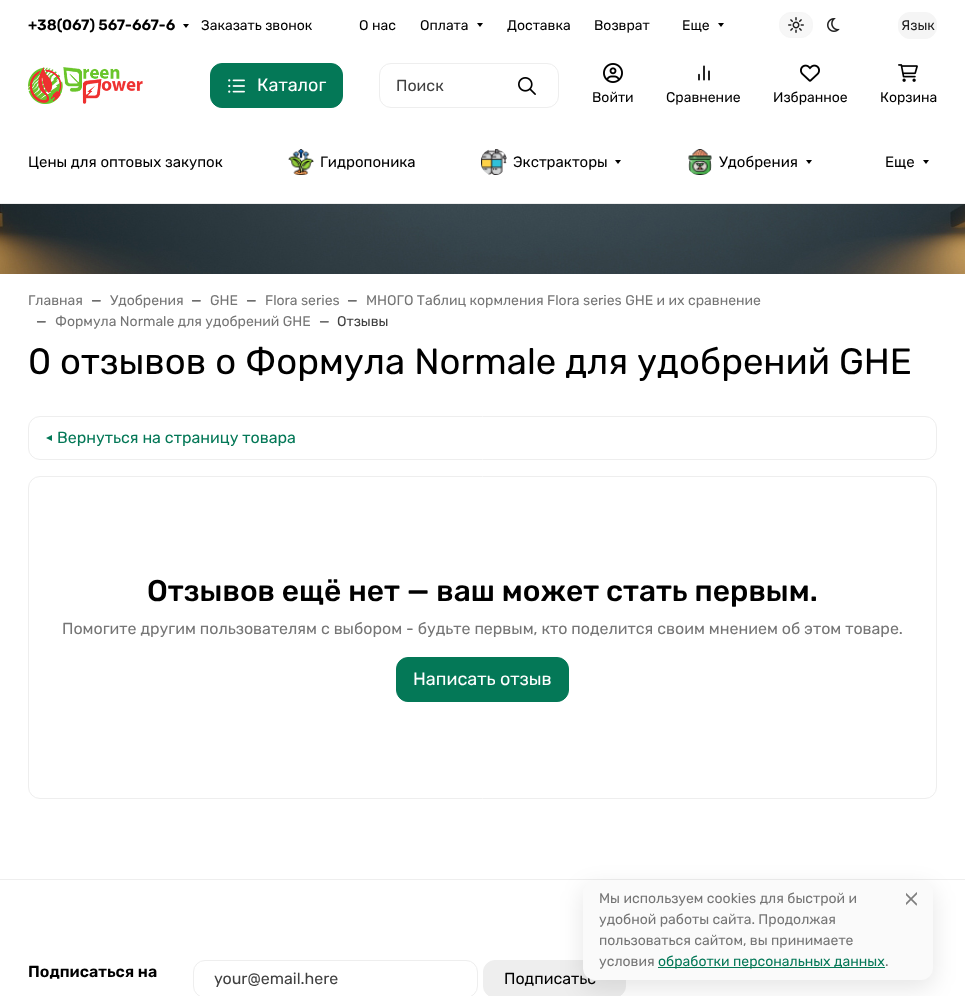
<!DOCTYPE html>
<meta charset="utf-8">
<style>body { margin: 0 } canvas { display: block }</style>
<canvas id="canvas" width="965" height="996"></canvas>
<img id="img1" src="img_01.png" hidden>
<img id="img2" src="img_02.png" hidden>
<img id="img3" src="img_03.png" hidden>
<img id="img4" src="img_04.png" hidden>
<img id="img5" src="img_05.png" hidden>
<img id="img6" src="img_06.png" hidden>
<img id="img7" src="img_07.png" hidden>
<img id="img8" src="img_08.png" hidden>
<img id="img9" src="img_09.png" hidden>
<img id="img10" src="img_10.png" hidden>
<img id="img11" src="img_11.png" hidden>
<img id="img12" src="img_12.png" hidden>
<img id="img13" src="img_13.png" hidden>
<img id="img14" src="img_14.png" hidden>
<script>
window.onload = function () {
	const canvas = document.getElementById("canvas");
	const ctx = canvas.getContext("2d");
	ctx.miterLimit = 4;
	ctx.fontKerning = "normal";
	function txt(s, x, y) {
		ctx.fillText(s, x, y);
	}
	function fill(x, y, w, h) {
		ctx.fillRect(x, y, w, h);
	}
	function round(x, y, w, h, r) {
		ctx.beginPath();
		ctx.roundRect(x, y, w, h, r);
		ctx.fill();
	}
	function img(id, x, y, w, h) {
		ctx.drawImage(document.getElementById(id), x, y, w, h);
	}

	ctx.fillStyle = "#FFFFFF";
	fill(0, 0, 965, 996);
	ctx.fillStyle = "#EEEEEE";
	fill(0, 203, 965, 1);
	ctx.fillStyle = "#000000";
	ctx.beginPath();
	ctx.moveTo(183, 24);
	ctx.lineTo(189, 24);
	ctx.lineTo(186, 28);
	ctx.closePath();
	ctx.fill();
	ctx.beginPath();
	ctx.moveTo(477, 23);
	ctx.lineTo(483, 23);
	ctx.lineTo(480, 27);
	ctx.closePath();
	ctx.fill();
	ctx.beginPath();
	ctx.moveTo(718, 23);
	ctx.lineTo(724, 23);
	ctx.lineTo(721, 27);
	ctx.closePath();
	ctx.fill();
	ctx.fillStyle = "#F7F7F7";
	ctx.beginPath();
	ctx.roundRect(779.5, 12.5, 33, 25, 11.5);
	ctx.fill();
	ctx.strokeStyle = "#F6F6F6";
	ctx.stroke();
	img("img1", 788, 17, 16, 16);
	img("img2", 827, 18, 13, 14);
	ctx.fillStyle = "#F5F5F5";
	ctx.beginPath();
	ctx.roundRect(898.5, 12.5, 38, 26, 11.5);
	ctx.fill();
	ctx.strokeStyle = "#F5F5F5";
	ctx.stroke();
	img("img3", 28, 67, 115, 37);
	ctx.fillStyle = "#047857";
	ctx.beginPath();
	ctx.roundRect(210.5, 63.5, 132, 44, 11.5);
	ctx.fill();
	ctx.strokeStyle = "#047857";
	ctx.stroke();
	img("img4", 228, 79, 17, 14);
	ctx.beginPath();
	ctx.roundRect(379.5, 63.5, 179, 44, 11.5);
	ctx.strokeStyle = "#EEEEEE";
	ctx.stroke();
	img("img5", 518, 77, 18, 18);
	img("img6", 603, 63, 20, 20);
	img("img7", 698, 65, 12, 16);
	img("img8", 800, 64, 20, 18);
	img("img9", 898, 64, 20, 18);
	img("img10", 288, 149, 26, 26);
	img("img11", 481, 149, 26, 26);
	ctx.fillStyle = "#000000";
	ctx.beginPath();
	ctx.moveTo(615, 160);
	ctx.lineTo(621, 160);
	ctx.lineTo(618, 164);
	ctx.closePath();
	ctx.fill();
	img("img12", 688, 149, 24, 26);
	ctx.beginPath();
	ctx.moveTo(806, 160);
	ctx.lineTo(812, 160);
	ctx.lineTo(809, 164);
	ctx.closePath();
	ctx.fill();
	ctx.beginPath();
	ctx.moveTo(923, 160);
	ctx.lineTo(929, 160);
	ctx.lineTo(926, 164);
	ctx.closePath();
	ctx.fill();
	img("img13", 0, 204, 965, 70);
	ctx.beginPath();
	ctx.roundRect(28.5, 416.5, 908, 43, 11.5);
	ctx.stroke();
	ctx.fillStyle = "#047857";
	ctx.beginPath();
	ctx.moveTo(52, 435);
	ctx.lineTo(52, 441);
	ctx.lineTo(46, 438);
	ctx.closePath();
	ctx.fill();
	ctx.beginPath();
	ctx.roundRect(28.5, 476.5, 908, 322, 11.5);
	ctx.stroke();
	ctx.beginPath();
	ctx.roundRect(396.5, 657.5, 172, 44, 11.5);
	ctx.fill();
	ctx.strokeStyle = "#047857";
	ctx.stroke();
	ctx.fillStyle = "#EEEEEE";
	fill(0, 879, 965, 1);
	ctx.beginPath();
	ctx.roundRect(193.5, 960.5, 284, 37, 11.5);
	ctx.strokeStyle = "#EEEEEE";
	ctx.stroke();
	ctx.beginPath();
	ctx.roundRect(483.5, 960.5, 142, 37, 11.5);
	ctx.fill();
	ctx.stroke();
	ctx.fillStyle = "rgba(0, 0, 0, 0.1)";
	ctx.filter = "blur(12px)";
	ctx.beginPath();
	ctx.roundRect(583, 888, 350, 100, 12);
	ctx.fill();
	ctx.filter = "none";
	ctx.font = "600 15px Rubik";
	ctx.fillStyle = "#000000";
	txt("+38(067) 567-667-6", 28, 30);
	ctx.font = "300 14px Rubik";
	txt("Заказать звонок", 201, 30);
	txt("О нас", 359, 30);
	txt("Оплата", 420, 30);
	txt("Доставка", 507, 30);
	txt("Возврат", 594, 30);
	txt("Еще", 682, 30);
	ctx.fillStyle = "#212121";
	txt("Язык", 901, 30);
	ctx.font = "300 18px Rubik";
	ctx.fillStyle = "#FFFFFF";
	txt("Каталог", 257, 91);
	ctx.font = "300 16px Rubik";
	ctx.fillStyle = "#404040";
	txt("Поиск", 396, 91);
	ctx.font = "300 14px Rubik";
	ctx.fillStyle = "#000000";
	txt("Войти", 592, 102);
	txt("Сравнение", 666, 102);
	txt("Избранное", 773, 102);
	txt("Корзина", 880, 102);
	ctx.font = "300 15px Rubik";
	txt("Цены для оптовых закупок", 28, 167);
	txt("Гидропоника", 320, 167);
	txt("Экстракторы", 513, 167);
	txt("Удобрения", 719, 167);
	txt("Еще", 885, 167);
	ctx.font = "300 14px Rubik";
	ctx.fillStyle = "#757575";
	txt("Главная", 28, 305);
	ctx.fillStyle = "#404040";
	txt("—", 91, 305);
	ctx.fillStyle = "#757575";
	txt("Удобрения", 110, 305);
	ctx.fillStyle = "#404040";
	txt("—", 191, 305);
	ctx.fillStyle = "#757575";
	txt("GHE", 210, 305);
	ctx.fillStyle = "#404040";
	txt("—", 246, 305);
	ctx.fillStyle = "#757575";
	txt("Flora series", 265, 305);
	ctx.fillStyle = "#404040";
	txt("—", 347, 305);
	ctx.fillStyle = "#757575";
	txt("МНОГО Таблиц кормления Flora series GHE и их сравнение", 366, 305);
	ctx.fillStyle = "#404040";
	txt("—", 36, 326);
	ctx.fillStyle = "#757575";
	txt("Формула Normale для удобрений GHE", 55, 326);
	ctx.fillStyle = "#404040";
	txt("—", 319, 326);
	txt("Отзывы", 337, 326);
	ctx.font = "300 36.5px Rubik";
	ctx.fillStyle = "#000000";
	txt("0 отзывов о Формула Normale для удобрений GHE", 28, 374);
	ctx.font = "300 16px Rubik";
	ctx.fillStyle = "#047857";
	txt("Вернуться на страницу товара", 57, 443);
	ctx.font = "300 29.9px 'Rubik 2'";
	ctx.fillStyle = "#000000";
	txt("Отзывов ещё нет — ваш может стать первым.", 147, 601);
	ctx.font = "300 16px Rubik";
	ctx.fillStyle = "#757575";
	txt("Помогите другим пользователям с выбором - будьте первым, кто поделится своим мнением об этом товаре.", 62, 634);
	ctx.font = "300 18px Rubik";
	ctx.fillStyle = "#FFFFFF";
	txt("Написать отзыв", 413, 685);
	ctx.font = "600 16px Rubik";
	ctx.fillStyle = "#000000";
	txt("Подписаться на", 28, 977);
	ctx.font = "300 16px Rubik";
	ctx.fillStyle = "#404040";
	txt("your@email.here", 214, 984);
	ctx.fillStyle = "#000000";
	txt("Подписатьс", 504, 984);
	ctx.fillStyle = "#FAFAFA";
	round(583, 880, 350, 100, 12);
	ctx.font = "300 14px Rubik";
	ctx.fillStyle = "#757575";
	txt("Мы используем cookies для быстрой и", 599, 903);
	txt("удобной работы сайта. Продолжая", 599, 924);
	txt("пользоваться сайтом, вы принимаете", 599, 945);
	txt("условия", 599, 966);
	ctx.fillStyle = "#047857";
	fill(658, 967, 227, 1);
	txt("обработки персональных данных", 658, 966);
	ctx.fillStyle = "#757575";
	txt(".", 885, 966);
	img("img14", 906, 892, 11, 14);
};
</script>
